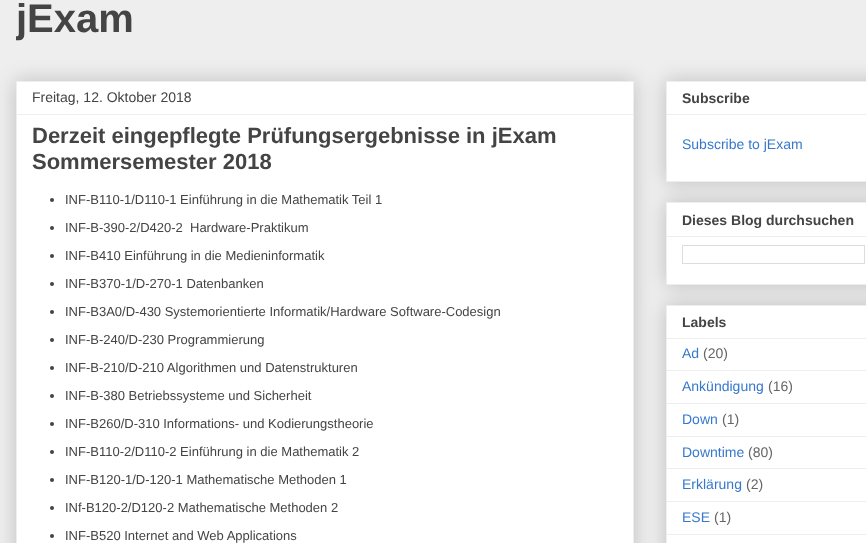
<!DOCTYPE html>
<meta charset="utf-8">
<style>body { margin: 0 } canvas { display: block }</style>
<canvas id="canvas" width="866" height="543"></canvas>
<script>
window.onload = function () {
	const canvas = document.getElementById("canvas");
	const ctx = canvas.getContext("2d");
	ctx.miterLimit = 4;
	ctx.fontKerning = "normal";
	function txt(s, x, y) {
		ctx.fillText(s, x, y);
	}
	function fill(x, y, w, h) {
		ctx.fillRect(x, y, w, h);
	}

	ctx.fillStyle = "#EEEEEE";
	fill(0, 0, 866, 543);
	ctx.fillStyle = "rgba(0, 0, 0, 0.2)";
	ctx.filter = "blur(10px)";
	ctx.beginPath();
	ctx.rect(16, 81, 618, 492);
	ctx.fill();
	ctx.filter = "none";
	ctx.fillStyle = "#FFFFFF";
	ctx.beginPath();
	ctx.rect(16.5, 81.5, 617, 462);
	ctx.fill();
	ctx.strokeStyle = "#EEEEEE";
	ctx.stroke();
	ctx.fillStyle = "#EEEEEE";
	fill(17, 114, 616, 1);
	ctx.fillStyle = "#444444";
	ctx.beginPath();
	ctx.arc(52, 200, 2, 0, Math.PI * 2);
	ctx.fill();
	ctx.beginPath();
	ctx.arc(52, 228, 2, 0, Math.PI * 2);
	ctx.fill();
	ctx.beginPath();
	ctx.arc(52, 256, 2, 0, Math.PI * 2);
	ctx.fill();
	ctx.beginPath();
	ctx.arc(52, 284, 2, 0, Math.PI * 2);
	ctx.fill();
	ctx.beginPath();
	ctx.arc(52, 312, 2, 0, Math.PI * 2);
	ctx.fill();
	ctx.beginPath();
	ctx.arc(52, 340, 2, 0, Math.PI * 2);
	ctx.fill();
	ctx.beginPath();
	ctx.arc(52, 368, 2, 0, Math.PI * 2);
	ctx.fill();
	ctx.beginPath();
	ctx.arc(52, 396, 2, 0, Math.PI * 2);
	ctx.fill();
	ctx.beginPath();
	ctx.arc(52, 424, 2, 0, Math.PI * 2);
	ctx.fill();
	ctx.beginPath();
	ctx.arc(52, 452, 2, 0, Math.PI * 2);
	ctx.fill();
	ctx.beginPath();
	ctx.arc(52, 480, 2, 0, Math.PI * 2);
	ctx.fill();
	ctx.beginPath();
	ctx.arc(52, 508, 2, 0, Math.PI * 2);
	ctx.fill();
	ctx.beginPath();
	ctx.arc(52, 536, 2, 0, Math.PI * 2);
	ctx.fill();
	ctx.fillStyle = "rgba(0, 0, 0, 0.2)";
	ctx.filter = "blur(10px)";
	ctx.beginPath();
	ctx.rect(666, 81, 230, 101);
	ctx.fill();
	ctx.filter = "none";
	ctx.fillStyle = "#FFFFFF";
	ctx.beginPath();
	ctx.rect(666.5, 81.5, 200, 100);
	ctx.fill();
	ctx.stroke();
	ctx.fillStyle = "#EEEEEE";
	fill(667, 114, 199, 1);
	ctx.fillStyle = "rgba(0, 0, 0, 0.2)";
	ctx.filter = "blur(10px)";
	ctx.beginPath();
	ctx.rect(666, 202, 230, 83);
	ctx.fill();
	ctx.filter = "none";
	ctx.fillStyle = "#FFFFFF";
	ctx.beginPath();
	ctx.rect(666.5, 202.5, 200, 82);
	ctx.fill();
	ctx.stroke();
	ctx.fillStyle = "#EEEEEE";
	fill(667, 236, 199, 1);
	ctx.strokeStyle = "#DDDDDD";
	ctx.strokeRect(682.5, 245.5, 182, 18);
	ctx.fillStyle = "rgba(0, 0, 0, 0.2)";
	ctx.filter = "blur(10px)";
	ctx.beginPath();
	ctx.rect(666, 305, 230, 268);
	ctx.fill();
	ctx.filter = "none";
	ctx.fillStyle = "#FFFFFF";
	ctx.beginPath();
	ctx.rect(666.5, 305.5, 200, 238);
	ctx.fill();
	ctx.strokeStyle = "#EEEEEE";
	ctx.stroke();
	ctx.fillStyle = "#EEEEEE";
	fill(667, 338, 199, 1);
	fill(667, 370, 199, 1);
	fill(667, 403, 199, 1);
	fill(667, 436, 199, 1);
	fill(667, 468, 199, 1);
	fill(667, 501, 199, 1);
	fill(667, 534, 199, 1);
	ctx.save();
	ctx.beginPath();
	ctx.rect(16, 0, 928, 51);
	ctx.clip();
	ctx.font = "bold 40px Liberation Sans";
	ctx.fillStyle = "#444444";
	txt("jExam", 16, 32);
	ctx.restore();
	ctx.font = "14px Liberation Sans";
	ctx.fillStyle = "#444444";
	txt("Freitag, 12. Oktober 2018", 32, 102);
	ctx.font = "bold 22px Liberation Sans";
	txt("Derzeit eingepflegte Prüfungsergebnisse in jExam", 32, 143);
	txt("Sommersemester 2018", 32, 169);
	ctx.font = "13px Liberation Sans";
	txt("INF-B110-1/D110-1 Einführung in die Mathematik Teil 1", 65, 204);
	txt("INF-B-390-2/D420-2  Hardware-Praktikum", 65, 232);
	txt("INF-B410 Einführung in die Medieninformatik", 65, 260);
	txt("INF-B370-1/D-270-1 Datenbanken", 65, 288);
	txt("INF-B3A0/D-430 Systemorientierte Informatik/Hardware Software-Codesign", 65, 316);
	txt("INF-B-240/D-230 Programmierung", 65, 344);
	txt("INF-B-210/D-210 Algorithmen und Datenstrukturen", 65, 372);
	txt("INF-B-380 Betriebssysteme und Sicherheit", 65, 400);
	txt("INF-B260/D-310 Informations- und Kodierungstheorie", 65, 428);
	txt("INF-B110-2/D110-2 Einführung in die Mathematik 2", 65, 456);
	txt("INF-B120-1/D-120-1 Mathematische Methoden 1", 65, 484);
	txt("INf-B120-2/D120-2 Mathematische Methoden 2", 65, 512);
	txt("INF-B520 Internet and Web Applications", 65, 540);
	ctx.font = "bold 14px Liberation Sans";
	txt("Subscribe", 682, 103);
	ctx.font = "14px Liberation Sans";
	ctx.fillStyle = "#3778CD";
	txt("Subscribe to jExam", 682, 149);
	ctx.font = "bold 14px Liberation Sans";
	ctx.fillStyle = "#444444";
	txt("Dieses Blog durchsuchen", 682, 225);
	txt("Labels", 682, 327);
	ctx.font = "14px Liberation Sans";
	ctx.fillStyle = "#3778CD";
	txt("Ad", 682, 358);
	ctx.fillStyle = "#666666";
	txt("(20)", 703, 358);
	ctx.fillStyle = "#3778CD";
	txt("Ankündigung", 682, 391);
	ctx.fillStyle = "#666666";
	txt("(16)", 768, 391);
	ctx.fillStyle = "#3778CD";
	txt("Down", 682, 424);
	ctx.fillStyle = "#666666";
	txt("(1)", 722, 424);
	ctx.fillStyle = "#3778CD";
	txt("Downtime", 682, 457);
	ctx.fillStyle = "#666666";
	txt("(80)", 748, 457);
	ctx.fillStyle = "#3778CD";
	txt("Erklärung", 682, 489);
	ctx.fillStyle = "#666666";
	txt("(2)", 746, 489);
	ctx.fillStyle = "#3778CD";
	txt("ESE", 682, 522);
	ctx.fillStyle = "#666666";
	txt("(1)", 714, 522);
};
</script>
